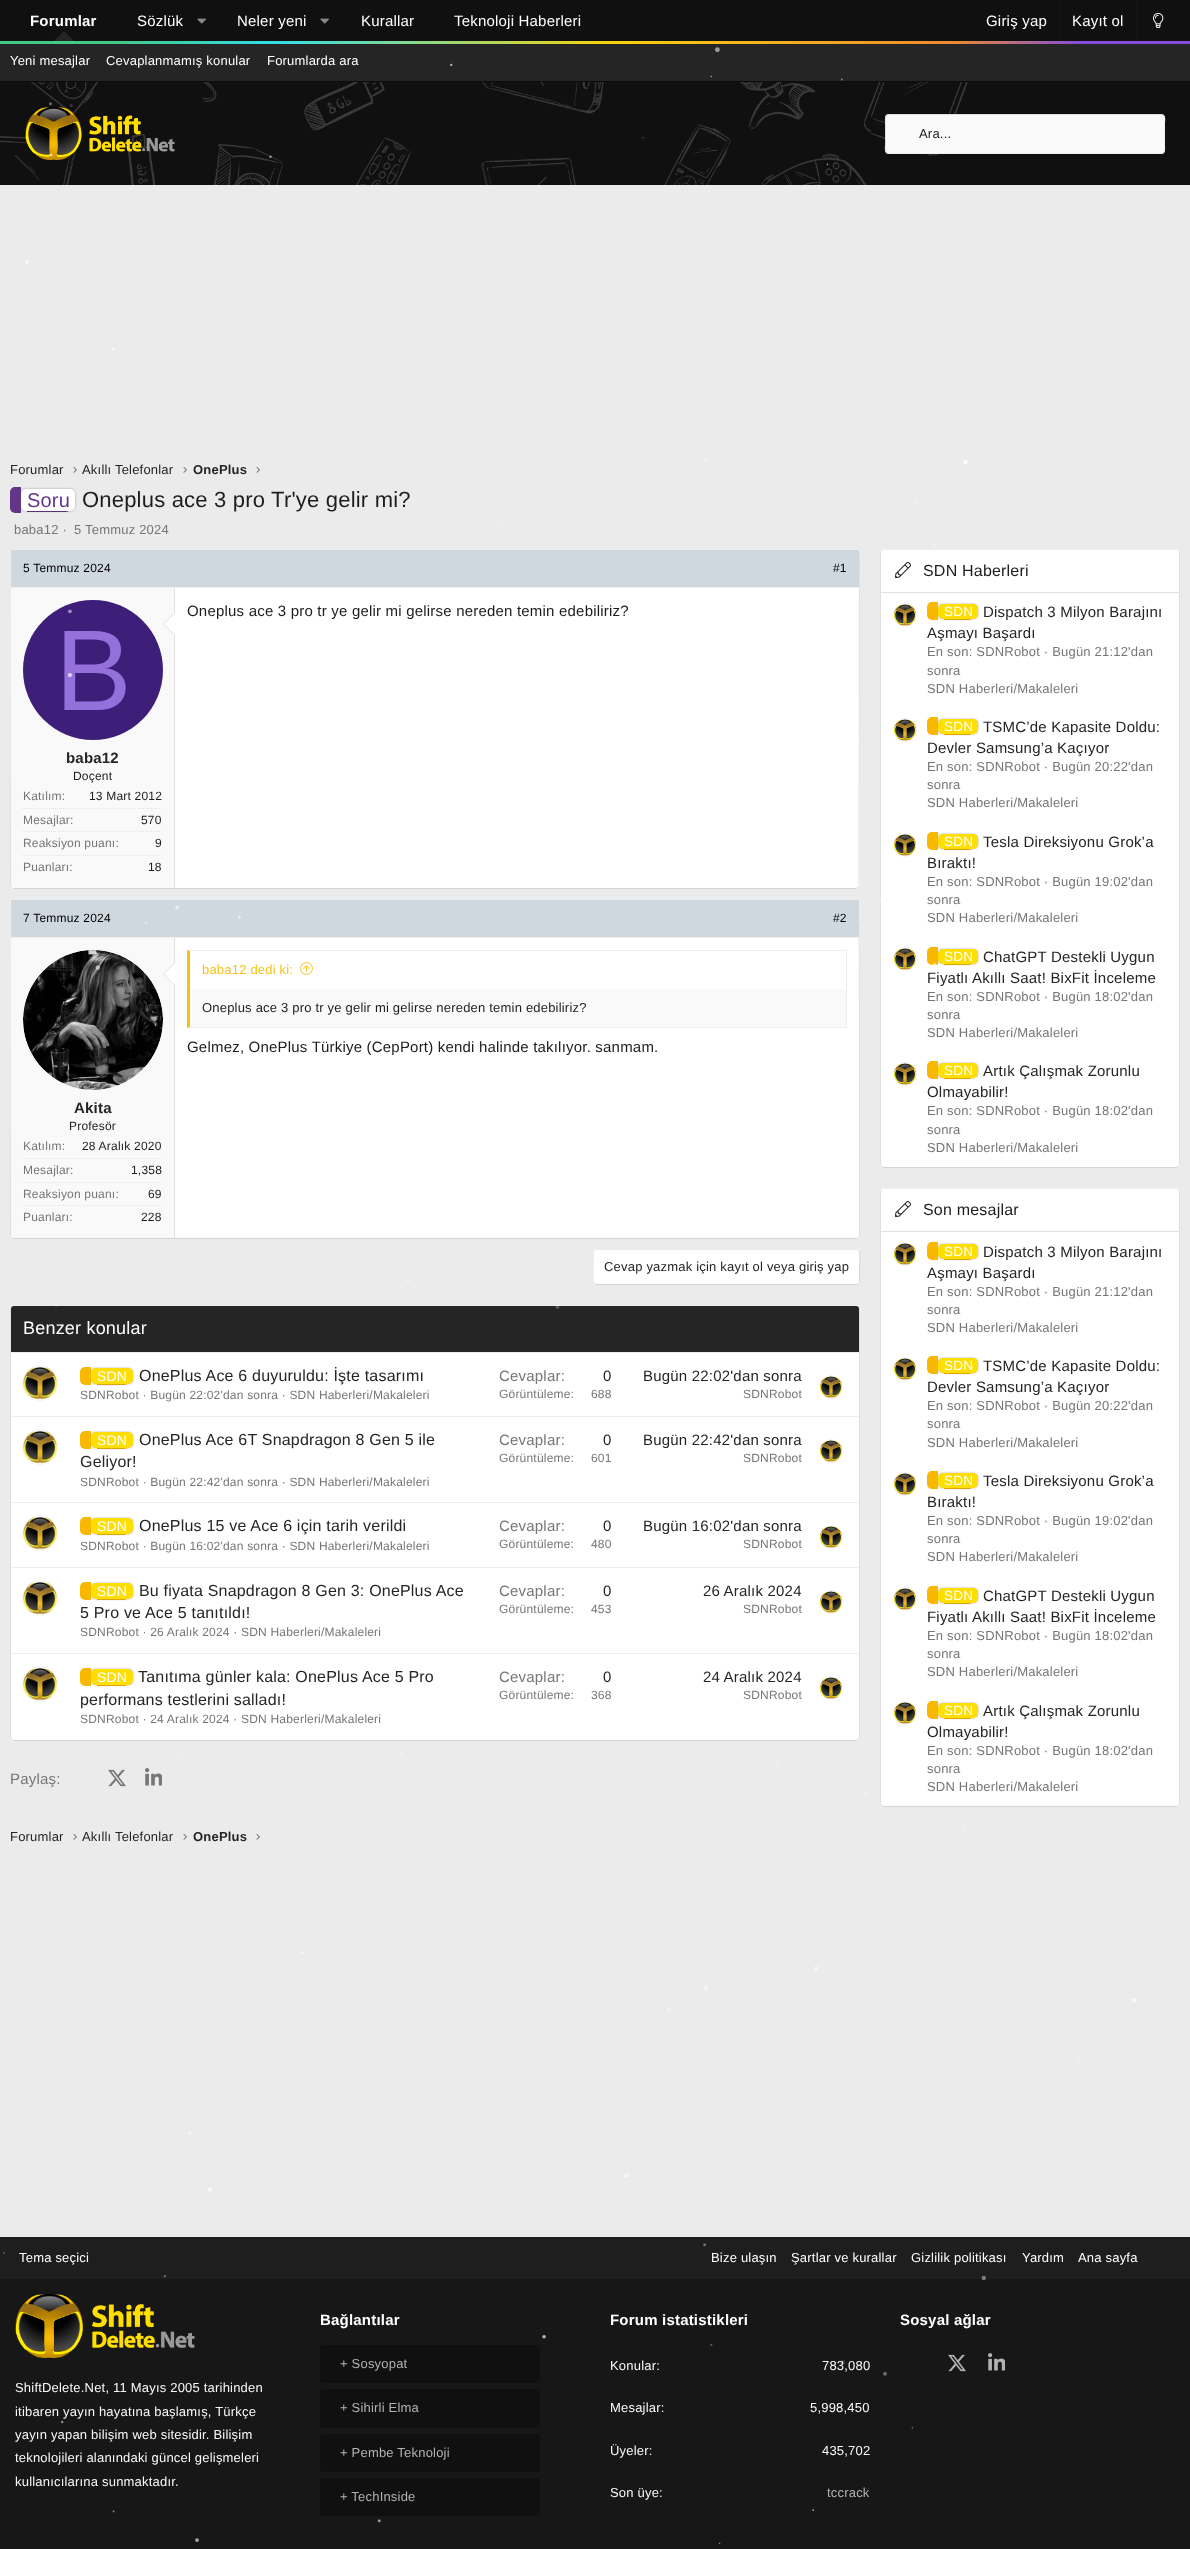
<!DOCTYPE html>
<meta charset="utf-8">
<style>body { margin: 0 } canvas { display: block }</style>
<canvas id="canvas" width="1190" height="2549"></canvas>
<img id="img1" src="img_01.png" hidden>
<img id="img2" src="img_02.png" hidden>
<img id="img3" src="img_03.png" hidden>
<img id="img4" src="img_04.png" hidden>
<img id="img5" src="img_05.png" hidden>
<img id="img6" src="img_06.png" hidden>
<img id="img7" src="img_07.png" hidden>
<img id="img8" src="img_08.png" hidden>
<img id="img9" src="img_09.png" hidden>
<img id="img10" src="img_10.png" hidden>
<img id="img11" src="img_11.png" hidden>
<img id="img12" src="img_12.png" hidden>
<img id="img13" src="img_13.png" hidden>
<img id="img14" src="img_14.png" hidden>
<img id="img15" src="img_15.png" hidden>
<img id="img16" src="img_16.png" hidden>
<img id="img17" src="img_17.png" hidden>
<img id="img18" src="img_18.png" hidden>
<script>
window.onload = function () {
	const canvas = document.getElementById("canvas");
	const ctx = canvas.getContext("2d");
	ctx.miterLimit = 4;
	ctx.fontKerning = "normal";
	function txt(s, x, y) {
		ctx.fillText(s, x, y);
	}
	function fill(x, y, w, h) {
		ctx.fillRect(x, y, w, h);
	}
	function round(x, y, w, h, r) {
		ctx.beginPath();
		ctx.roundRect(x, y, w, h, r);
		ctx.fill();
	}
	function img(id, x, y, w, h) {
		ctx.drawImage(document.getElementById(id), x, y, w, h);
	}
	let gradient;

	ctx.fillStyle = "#EBEBEB";
	fill(0, 0, 1190, 2549);
	ctx.fillStyle = "#101010";
	fill(0, 0, 1190, 41);
	ctx.fillStyle = "#252525";
	ctx.beginPath();
	ctx.moveTo(74, 41);
	ctx.lineTo(54, 41);
	ctx.lineTo(64, 31);
	ctx.closePath();
	ctx.fill();
	img("img1", 197, 18, 9, 6);
	img("img1", 320, 18, 9, 6);
	ctx.fillStyle = "#141414";
	fill(1059, 0, 1, 41);
	fill(1136, 0, 1, 41);
	img("img2", 1153, 13, 11, 15);
	gradient = ctx.createLinearGradient(0, 43, 1190, 42);
	gradient.addColorStop(0.1, "#42CA88");
	gradient.addColorStop(0.23, "#32DDE8");
	gradient.addColorStop(0.51, "#F9D30D");
	gradient.addColorStop(0.8, "#ED8B30");
	gradient.addColorStop(0.91, "#834BDE");
	ctx.fillStyle = gradient;
	fill(0, 41, 1190, 3);
	ctx.fillStyle = "#252525";
	fill(0, 44, 1190, 37);
	ctx.fillStyle = "#0C0C0C";
	fill(0, 81, 1190, 1);
	ctx.fillStyle = "#101010";
	fill(968, 82, 222, 103);
	img("img3", 0, 82, 968, 103);
	img("img4", 25, 107, 150, 53);
	ctx.fillStyle = "#FAFAFA";
	round(885, 114, 280, 40, 4);
	ctx.beginPath();
	ctx.moveTo(1163.5, 115.5);
	ctx.bezierCurveTo(1165.5, 117.5, 1164.5, 121.5, 1164.5, 123.5);
	ctx.lineTo(1164.5, 144.5);
	ctx.bezierCurveTo(1164.5, 147.5, 1165.5, 153.5, 1161, 153.5);
	ctx.lineTo(889, 153.5);
	ctx.lineTo(886.5, 152.5);
	ctx.strokeStyle = "#EEEEEE";
	ctx.stroke();
	ctx.beginPath();
	ctx.moveTo(886.5, 152.5);
	ctx.bezierCurveTo(884.5, 150.5, 885.5, 146.5, 885.5, 144.5);
	ctx.lineTo(885.5, 123.5);
	ctx.bezierCurveTo(885.5, 120.5, 884.5, 114.5, 889, 114.5);
	ctx.lineTo(1161, 114.5);
	ctx.lineTo(1163.5, 115.5);
	ctx.strokeStyle = "#DFDFDF";
	ctx.stroke();
	img("img5", 73, 467, 4, 6);
	img("img5", 183, 467, 4, 6);
	img("img5", 256, 467, 4, 6);
	ctx.fillStyle = "#64368A";
	ctx.beginPath();
	ctx.roundRect(10, 487, 11, 26, [5, 0, 0, 5]);
	ctx.fill();
	ctx.beginPath();
	ctx.roundRect(27, 489, 44, 23, [0, 5, 5, 0]);
	ctx.fill();
	ctx.fillStyle = "rgba(0, 0, 0, 0.31)";
	ctx.filter = "blur(1px)";
	ctx.beginPath();
	ctx.roundRect(21, 489, 54, 22, 5);
	ctx.fill();
	ctx.filter = "none";
	ctx.fillStyle = "#FFFFFF";
	round(21, 489, 54, 22, 5);
	ctx.fillStyle = "#64368A";
	round(11, 487, 10, 25, 5);
	ctx.fillStyle = "#FFFFFF";
	round(10, 549, 850, 340, 4);
	ctx.beginPath();
	ctx.moveTo(11.5, 550.5);
	ctx.lineTo(14, 549.5);
	ctx.lineTo(856, 549.5);
	ctx.lineTo(858.5, 550.5);
	ctx.strokeStyle = "#EEEEEE";
	ctx.stroke();
	ctx.beginPath();
	ctx.moveTo(858.5, 550.5);
	ctx.lineTo(859.5, 553);
	ctx.lineTo(859, 886.5);
	ctx.lineTo(858.5, 887.5);
	ctx.strokeStyle = "#DFDFDF";
	ctx.stroke();
	ctx.beginPath();
	ctx.moveTo(858.5, 887.5);
	ctx.lineTo(856, 888.5);
	ctx.lineTo(14, 888.5);
	ctx.lineTo(11.5, 887.5);
	ctx.strokeStyle = "#D5D5D5";
	ctx.stroke();
	ctx.beginPath();
	ctx.moveTo(11.5, 887.5);
	ctx.lineTo(10.5, 885);
	ctx.lineTo(11, 551.5);
	ctx.lineTo(11.5, 550.5);
	ctx.strokeStyle = "#DFDFDF";
	ctx.stroke();
	ctx.fillStyle = "#CFD7DF";
	fill(11, 550, 848, 37);
	ctx.fillStyle = "#EEEEEE";
	fill(11, 587, 848, 1);
	ctx.fillStyle = "#F9F9F9";
	ctx.beginPath();
	ctx.roundRect(11, 588, 164, 300, [0, 0, 0, 3]);
	ctx.fill();
	ctx.fillStyle = "#DFDFDF";
	fill(174, 588, 1, 300);
	ctx.beginPath();
	ctx.moveTo(175, 612);
	ctx.lineTo(175, 636);
	ctx.lineTo(163, 624);
	ctx.closePath();
	ctx.fill();
	ctx.fillStyle = "#FFFFFF";
	ctx.beginPath();
	ctx.moveTo(175, 613);
	ctx.lineTo(175, 635);
	ctx.lineTo(164, 624);
	ctx.closePath();
	ctx.fill();
	ctx.fillStyle = "#3D1F7A";
	ctx.beginPath();
	ctx.arc(93, 670, 70, 0, Math.PI * 2);
	ctx.fill();
	ctx.beginPath();
	ctx.moveTo(23, 808.5);
	ctx.lineTo(162, 808.5);
	ctx.strokeStyle = "#E4E4E4";
	ctx.setLineDash([1, 1]);
	ctx.stroke();
	ctx.beginPath();
	ctx.moveTo(23, 831.5);
	ctx.lineTo(162, 831.5);
	ctx.stroke();
	ctx.beginPath();
	ctx.moveTo(23, 855.5);
	ctx.lineTo(162, 855.5);
	ctx.stroke();
	ctx.fillStyle = "#FFFFFF";
	round(10, 899, 850, 340, 4);
	ctx.beginPath();
	ctx.moveTo(11.5, 900.5);
	ctx.lineTo(14, 899.5);
	ctx.lineTo(856, 899.5);
	ctx.lineTo(858.5, 900.5);
	ctx.strokeStyle = "#EEEEEE";
	ctx.setLineDash([]);
	ctx.stroke();
	ctx.beginPath();
	ctx.moveTo(858.5, 900.5);
	ctx.lineTo(859, 901.5);
	ctx.lineTo(859.5, 1013.5);
	ctx.lineTo(859.5, 1235);
	ctx.lineTo(858.5, 1237.5);
	ctx.strokeStyle = "#DFDFDF";
	ctx.stroke();
	ctx.beginPath();
	ctx.moveTo(858.5, 1237.5);
	ctx.lineTo(856, 1238.5);
	ctx.lineTo(14, 1238.5);
	ctx.lineTo(11.5, 1237.5);
	ctx.strokeStyle = "#D5D5D5";
	ctx.stroke();
	ctx.beginPath();
	ctx.moveTo(11.5, 1237.5);
	ctx.lineTo(10.5, 1235);
	ctx.lineTo(11, 901.5);
	ctx.lineTo(11.5, 900.5);
	ctx.strokeStyle = "#DFDFDF";
	ctx.stroke();
	ctx.fillStyle = "#CFD7DF";
	fill(11, 900, 848, 37);
	ctx.fillStyle = "#EEEEEE";
	fill(11, 937, 848, 1);
	ctx.fillStyle = "#F9F9F9";
	fill(190, 989, 656, 38);
	ctx.fillStyle = "#EEEEEE";
	ctx.beginPath();
	ctx.moveTo(187, 950);
	ctx.lineTo(847, 950);
	ctx.lineTo(846, 951);
	ctx.lineTo(190, 951);
	ctx.closePath();
	ctx.fill();
	fill(846, 950, 1, 78);
	ctx.beginPath();
	ctx.moveTo(847, 1028);
	ctx.lineTo(187, 1028);
	ctx.lineTo(190, 1027);
	ctx.lineTo(846, 1027);
	ctx.closePath();
	ctx.fill();
	ctx.fillStyle = "#F6C116";
	ctx.beginPath();
	ctx.moveTo(187, 1028);
	ctx.lineTo(187, 950);
	ctx.lineTo(190, 951);
	ctx.lineTo(190, 1027);
	ctx.closePath();
	ctx.fill();
	img("img6", 300, 962, 13, 13);
	ctx.fillStyle = "#F9F9F9";
	ctx.beginPath();
	ctx.roundRect(11, 938, 164, 300, [0, 0, 0, 3]);
	ctx.fill();
	ctx.fillStyle = "#DFDFDF";
	fill(174, 938, 1, 300);
	ctx.fillStyle = "#FFFFFF";
	ctx.beginPath();
	ctx.arc(93, 1020, 70, 0, Math.PI * 2);
	ctx.fill();
	img("img7", 23, 950, 140, 140);
	ctx.fillStyle = "#DFDFDF";
	ctx.beginPath();
	ctx.moveTo(175, 962);
	ctx.lineTo(175, 986);
	ctx.lineTo(163, 974);
	ctx.closePath();
	ctx.fill();
	ctx.fillStyle = "#FFFFFF";
	ctx.beginPath();
	ctx.moveTo(175, 963);
	ctx.lineTo(175, 985);
	ctx.lineTo(164, 974);
	ctx.closePath();
	ctx.fill();
	ctx.beginPath();
	ctx.moveTo(23, 1158.5);
	ctx.lineTo(162, 1158.5);
	ctx.strokeStyle = "#E4E4E4";
	ctx.setLineDash([1, 1]);
	ctx.stroke();
	ctx.beginPath();
	ctx.moveTo(23, 1182.5);
	ctx.lineTo(162, 1182.5);
	ctx.stroke();
	ctx.beginPath();
	ctx.moveTo(23, 1205.5);
	ctx.lineTo(162, 1205.5);
	ctx.stroke();
	round(593, 1249, 267, 36, 4);
	ctx.beginPath();
	ctx.moveTo(858.5, 1250.5);
	ctx.bezierCurveTo(861, 1253, 859.5, 1264, 859.5, 1267);
	ctx.lineTo(859.5, 1276.5);
	ctx.bezierCurveTo(859.5, 1279, 860.5, 1284.5, 856, 1284.5);
	ctx.lineTo(597, 1284.5);
	ctx.lineTo(594.5, 1283.5);
	ctx.strokeStyle = "#D2D2D2";
	ctx.setLineDash([]);
	ctx.stroke();
	ctx.beginPath();
	ctx.moveTo(594.5, 1283.5);
	ctx.bezierCurveTo(592, 1281, 593.5, 1270, 593.5, 1267);
	ctx.lineTo(593.5, 1257.5);
	ctx.bezierCurveTo(593.5, 1255, 592.5, 1249.5, 597, 1249.5);
	ctx.lineTo(856, 1249.5);
	ctx.lineTo(858.5, 1250.5);
	ctx.strokeStyle = "#ECECEC";
	ctx.stroke();
	round(10, 1305, 850, 436, 4);
	ctx.beginPath();
	ctx.moveTo(11.5, 1306.5);
	ctx.lineTo(14, 1305.5);
	ctx.lineTo(856, 1305.5);
	ctx.lineTo(858.5, 1306.5);
	ctx.strokeStyle = "#EEEEEE";
	ctx.stroke();
	ctx.beginPath();
	ctx.moveTo(858.5, 1306.5);
	ctx.lineTo(859.5, 1309);
	ctx.lineTo(859.5, 1737);
	ctx.lineTo(858.5, 1739.5);
	ctx.strokeStyle = "#DFDFDF";
	ctx.stroke();
	ctx.beginPath();
	ctx.moveTo(858.5, 1739.5);
	ctx.lineTo(856, 1740.5);
	ctx.lineTo(14, 1740.5);
	ctx.lineTo(11.5, 1739.5);
	ctx.strokeStyle = "#D5D5D5";
	ctx.stroke();
	ctx.beginPath();
	ctx.moveTo(11.5, 1739.5);
	ctx.lineTo(10.5, 1737);
	ctx.lineTo(10.5, 1309);
	ctx.lineTo(11.5, 1306.5);
	ctx.strokeStyle = "#DFDFDF";
	ctx.stroke();
	ctx.fillStyle = "#252525";
	ctx.beginPath();
	ctx.roundRect(11, 1306, 848, 47, [3, 3, 0, 0]);
	ctx.fill();
	ctx.fillStyle = "#EEEEEE";
	fill(11, 1352, 848, 1);
	img("img8", 22, 1365, 36, 36);
	ctx.fillStyle = "#F9B800";
	ctx.beginPath();
	ctx.roundRect(80, 1367, 11, 18, [5, 0, 0, 5]);
	ctx.fill();
	ctx.beginPath();
	ctx.roundRect(97, 1368, 32, 17, [0, 5, 5, 0]);
	ctx.fill();
	ctx.fillStyle = "rgba(0, 0, 0, 0.31)";
	ctx.filter = "blur(1px)";
	ctx.beginPath();
	ctx.roundRect(91, 1368, 42, 16, 5);
	ctx.fill();
	ctx.filter = "none";
	ctx.fillStyle = "#FFDE01";
	round(91, 1368, 42, 16, 5);
	ctx.fillStyle = "#F9B800";
	round(81, 1367, 10, 17, 5);
	img("img9", 819, 1375, 24, 24);
	ctx.fillStyle = "#EEEEEE";
	fill(11, 1416, 848, 1);
	img("img8", 22, 1429, 36, 36);
	ctx.fillStyle = "#F9B800";
	ctx.beginPath();
	ctx.roundRect(80, 1431, 11, 18, [5, 0, 0, 5]);
	ctx.fill();
	ctx.beginPath();
	ctx.roundRect(97, 1432, 32, 17, [0, 5, 5, 0]);
	ctx.fill();
	ctx.fillStyle = "rgba(0, 0, 0, 0.31)";
	ctx.filter = "blur(1px)";
	ctx.beginPath();
	ctx.roundRect(91, 1432, 42, 16, 5);
	ctx.fill();
	ctx.filter = "none";
	ctx.fillStyle = "#FFDE01";
	round(91, 1432, 42, 16, 5);
	ctx.fillStyle = "#F9B800";
	round(81, 1431, 10, 17, 5);
	img("img9", 819, 1439, 24, 24);
	ctx.fillStyle = "#EEEEEE";
	fill(11, 1502, 848, 1);
	img("img10", 22, 1515, 36, 36);
	ctx.fillStyle = "#F9B800";
	ctx.beginPath();
	ctx.roundRect(80, 1517, 11, 18, [5, 0, 0, 5]);
	ctx.fill();
	ctx.beginPath();
	ctx.roundRect(97, 1518, 32, 17, [0, 5, 5, 0]);
	ctx.fill();
	ctx.fillStyle = "rgba(0, 0, 0, 0.31)";
	ctx.filter = "blur(1px)";
	ctx.beginPath();
	ctx.roundRect(91, 1518, 42, 16, 5);
	ctx.fill();
	ctx.filter = "none";
	ctx.fillStyle = "#FFDE01";
	round(91, 1518, 42, 16, 5);
	ctx.fillStyle = "#F9B800";
	round(81, 1517, 10, 17, 5);
	img("img9", 819, 1525, 24, 24);
	ctx.fillStyle = "#EEEEEE";
	fill(11, 1567, 848, 1);
	img("img8", 22, 1580, 36, 36);
	ctx.fillStyle = "#F9B800";
	ctx.beginPath();
	ctx.roundRect(80, 1582, 11, 18, [5, 0, 0, 5]);
	ctx.fill();
	ctx.beginPath();
	ctx.roundRect(97, 1583, 32, 17, [0, 5, 5, 0]);
	ctx.fill();
	ctx.fillStyle = "rgba(0, 0, 0, 0.31)";
	ctx.filter = "blur(1px)";
	ctx.beginPath();
	ctx.roundRect(91, 1583, 42, 16, 5);
	ctx.fill();
	ctx.filter = "none";
	ctx.fillStyle = "#FFDE01";
	round(91, 1583, 42, 16, 5);
	ctx.fillStyle = "#F9B800";
	round(81, 1582, 10, 17, 5);
	img("img9", 819, 1590, 24, 24);
	ctx.fillStyle = "#EEEEEE";
	fill(11, 1653, 848, 1);
	img("img8", 22, 1666, 36, 36);
	ctx.fillStyle = "#F9B800";
	ctx.beginPath();
	ctx.roundRect(80, 1668, 11, 18, [5, 0, 0, 5]);
	ctx.fill();
	ctx.beginPath();
	ctx.roundRect(97, 1669, 32, 17, [0, 5, 5, 0]);
	ctx.fill();
	ctx.fillStyle = "rgba(0, 0, 0, 0.31)";
	ctx.filter = "blur(1px)";
	ctx.beginPath();
	ctx.roundRect(91, 1669, 42, 16, 5);
	ctx.fill();
	ctx.filter = "none";
	ctx.fillStyle = "#FFDE01";
	round(91, 1669, 42, 16, 5);
	ctx.fillStyle = "#F9B800";
	round(81, 1668, 10, 17, 5);
	img("img9", 819, 1676, 24, 24);
	img("img11", 108, 1769, 18, 18);
	img("img12", 145, 1768, 17, 18);
	ctx.fillStyle = "#FFFFFF";
	round(880, 549, 300, 619, 4);
	ctx.beginPath();
	ctx.moveTo(881.5, 550.5);
	ctx.lineTo(884, 549.5);
	ctx.lineTo(1176, 549.5);
	ctx.lineTo(1178.5, 550.5);
	ctx.strokeStyle = "#EEEEEE";
	ctx.stroke();
	ctx.beginPath();
	ctx.moveTo(1178.5, 550.5);
	ctx.lineTo(1179.5, 553);
	ctx.lineTo(1179.5, 1164);
	ctx.lineTo(1178.5, 1166.5);
	ctx.strokeStyle = "#DFDFDF";
	ctx.stroke();
	ctx.beginPath();
	ctx.moveTo(1178.5, 1166.5);
	ctx.lineTo(1176, 1167.5);
	ctx.lineTo(884, 1167.5);
	ctx.lineTo(881.5, 1166.5);
	ctx.strokeStyle = "#D5D5D5";
	ctx.stroke();
	ctx.beginPath();
	ctx.moveTo(881.5, 1166.5);
	ctx.lineTo(880.5, 1164);
	ctx.lineTo(880.5, 553);
	ctx.lineTo(881.5, 550.5);
	ctx.strokeStyle = "#DFDFDF";
	ctx.stroke();
	ctx.fillStyle = "#DFDFDF";
	fill(881, 592, 298, 1);
	img("img13", 895, 562, 16, 16);
	img("img14", 893, 603, 24, 24);
	ctx.fillStyle = "#F9B800";
	ctx.beginPath();
	ctx.roundRect(927, 602, 11, 18, [5, 0, 0, 5]);
	ctx.fill();
	ctx.beginPath();
	ctx.roundRect(944, 604, 30, 16, [0, 5, 5, 0]);
	ctx.fill();
	ctx.fillStyle = "rgba(0, 0, 0, 0.31)";
	ctx.filter = "blur(1px)";
	ctx.beginPath();
	ctx.roundRect(938, 604, 40, 15, 5);
	ctx.fill();
	ctx.filter = "none";
	ctx.fillStyle = "#FFDE01";
	round(938, 604, 40, 15, 5);
	ctx.fillStyle = "#F9B800";
	round(928, 602, 10, 17, 5);
	img("img14", 893, 718, 24, 24);
	ctx.beginPath();
	ctx.roundRect(927, 717, 11, 18, [5, 0, 0, 5]);
	ctx.fill();
	ctx.beginPath();
	ctx.roundRect(944, 719, 30, 16, [0, 5, 5, 0]);
	ctx.fill();
	ctx.fillStyle = "rgba(0, 0, 0, 0.31)";
	ctx.filter = "blur(1px)";
	ctx.beginPath();
	ctx.roundRect(938, 719, 40, 15, 5);
	ctx.fill();
	ctx.filter = "none";
	ctx.fillStyle = "#FFDE01";
	round(938, 719, 40, 15, 5);
	ctx.fillStyle = "#F9B800";
	round(928, 717, 10, 17, 5);
	img("img14", 893, 833, 24, 24);
	ctx.beginPath();
	ctx.roundRect(927, 832, 11, 18, [5, 0, 0, 5]);
	ctx.fill();
	ctx.beginPath();
	ctx.roundRect(944, 834, 30, 16, [0, 5, 5, 0]);
	ctx.fill();
	ctx.fillStyle = "rgba(0, 0, 0, 0.31)";
	ctx.filter = "blur(1px)";
	ctx.beginPath();
	ctx.roundRect(938, 834, 40, 15, 5);
	ctx.fill();
	ctx.filter = "none";
	ctx.fillStyle = "#FFDE01";
	round(938, 834, 40, 15, 5);
	ctx.fillStyle = "#F9B800";
	round(928, 832, 10, 17, 5);
	img("img14", 893, 947, 24, 24);
	ctx.beginPath();
	ctx.roundRect(927, 947, 11, 18, [5, 0, 0, 5]);
	ctx.fill();
	ctx.beginPath();
	ctx.roundRect(944, 949, 30, 16, [0, 5, 5, 0]);
	ctx.fill();
	ctx.fillStyle = "rgba(0, 0, 0, 0.31)";
	ctx.filter = "blur(1px)";
	ctx.beginPath();
	ctx.roundRect(938, 949, 40, 15, 5);
	ctx.fill();
	ctx.filter = "none";
	ctx.fillStyle = "#FFDE01";
	round(938, 949, 40, 15, 5);
	ctx.fillStyle = "#F9B800";
	round(928, 947, 10, 17, 5);
	img("img14", 893, 1062, 24, 24);
	ctx.beginPath();
	ctx.roundRect(927, 1061, 11, 18, [5, 0, 0, 5]);
	ctx.fill();
	ctx.beginPath();
	ctx.roundRect(944, 1063, 30, 16, [0, 5, 5, 0]);
	ctx.fill();
	ctx.fillStyle = "rgba(0, 0, 0, 0.31)";
	ctx.filter = "blur(1px)";
	ctx.beginPath();
	ctx.roundRect(938, 1063, 40, 15, 5);
	ctx.fill();
	ctx.filter = "none";
	ctx.fillStyle = "#FFDE01";
	round(938, 1063, 40, 15, 5);
	ctx.fillStyle = "#F9B800";
	round(928, 1061, 10, 17, 5);
	ctx.fillStyle = "#FFFFFF";
	round(880, 1188, 300, 619, 4);
	ctx.beginPath();
	ctx.moveTo(881.5, 1189.5);
	ctx.lineTo(884, 1188.5);
	ctx.lineTo(1176, 1188.5);
	ctx.lineTo(1178.5, 1189.5);
	ctx.strokeStyle = "#EEEEEE";
	ctx.stroke();
	ctx.beginPath();
	ctx.moveTo(1178.5, 1189.5);
	ctx.lineTo(1179.5, 1192);
	ctx.lineTo(1179.5, 1803);
	ctx.lineTo(1178.5, 1805.5);
	ctx.strokeStyle = "#DFDFDF";
	ctx.stroke();
	ctx.beginPath();
	ctx.moveTo(1178.5, 1805.5);
	ctx.lineTo(1176, 1806.5);
	ctx.lineTo(884, 1806.5);
	ctx.lineTo(881.5, 1805.5);
	ctx.strokeStyle = "#D5D5D5";
	ctx.stroke();
	ctx.beginPath();
	ctx.moveTo(881.5, 1805.5);
	ctx.lineTo(880.5, 1803);
	ctx.lineTo(880.5, 1192);
	ctx.lineTo(881.5, 1189.5);
	ctx.strokeStyle = "#DFDFDF";
	ctx.stroke();
	ctx.fillStyle = "#DFDFDF";
	fill(881, 1231, 298, 1);
	img("img13", 895, 1201, 16, 16);
	img("img14", 893, 1242, 24, 24);
	ctx.fillStyle = "#F9B800";
	ctx.beginPath();
	ctx.roundRect(927, 1242, 11, 18, [5, 0, 0, 5]);
	ctx.fill();
	ctx.beginPath();
	ctx.roundRect(944, 1244, 30, 16, [0, 5, 5, 0]);
	ctx.fill();
	ctx.fillStyle = "rgba(0, 0, 0, 0.31)";
	ctx.filter = "blur(1px)";
	ctx.beginPath();
	ctx.roundRect(938, 1244, 40, 15, 5);
	ctx.fill();
	ctx.filter = "none";
	ctx.fillStyle = "#FFDE01";
	round(938, 1244, 40, 15, 5);
	ctx.fillStyle = "#F9B800";
	round(928, 1242, 10, 17, 5);
	img("img14", 893, 1357, 24, 24);
	ctx.beginPath();
	ctx.roundRect(927, 1356, 11, 18, [5, 0, 0, 5]);
	ctx.fill();
	ctx.beginPath();
	ctx.roundRect(944, 1358, 30, 16, [0, 5, 5, 0]);
	ctx.fill();
	ctx.fillStyle = "rgba(0, 0, 0, 0.31)";
	ctx.filter = "blur(1px)";
	ctx.beginPath();
	ctx.roundRect(938, 1358, 40, 15, 5);
	ctx.fill();
	ctx.filter = "none";
	ctx.fillStyle = "#FFDE01";
	round(938, 1358, 40, 15, 5);
	ctx.fillStyle = "#F9B800";
	round(928, 1356, 10, 17, 5);
	img("img14", 893, 1472, 24, 24);
	ctx.beginPath();
	ctx.roundRect(927, 1471, 11, 18, [5, 0, 0, 5]);
	ctx.fill();
	ctx.beginPath();
	ctx.roundRect(944, 1473, 30, 16, [0, 5, 5, 0]);
	ctx.fill();
	ctx.fillStyle = "rgba(0, 0, 0, 0.31)";
	ctx.filter = "blur(1px)";
	ctx.beginPath();
	ctx.roundRect(938, 1473, 40, 15, 5);
	ctx.fill();
	ctx.filter = "none";
	ctx.fillStyle = "#FFDE01";
	round(938, 1473, 40, 15, 5);
	ctx.fillStyle = "#F9B800";
	round(928, 1471, 10, 17, 5);
	img("img14", 893, 1587, 24, 24);
	ctx.beginPath();
	ctx.roundRect(927, 1586, 11, 18, [5, 0, 0, 5]);
	ctx.fill();
	ctx.beginPath();
	ctx.roundRect(944, 1588, 30, 16, [0, 5, 5, 0]);
	ctx.fill();
	ctx.fillStyle = "rgba(0, 0, 0, 0.31)";
	ctx.filter = "blur(1px)";
	ctx.beginPath();
	ctx.roundRect(938, 1588, 40, 15, 5);
	ctx.fill();
	ctx.filter = "none";
	ctx.fillStyle = "#FFDE01";
	round(938, 1588, 40, 15, 5);
	ctx.fillStyle = "#F9B800";
	round(928, 1586, 10, 17, 5);
	img("img14", 893, 1701, 24, 24);
	ctx.beginPath();
	ctx.roundRect(927, 1701, 11, 18, [5, 0, 0, 5]);
	ctx.fill();
	ctx.beginPath();
	ctx.roundRect(944, 1703, 30, 16, [0, 5, 5, 0]);
	ctx.fill();
	ctx.fillStyle = "rgba(0, 0, 0, 0.31)";
	ctx.filter = "blur(1px)";
	ctx.beginPath();
	ctx.roundRect(938, 1703, 40, 15, 5);
	ctx.fill();
	ctx.filter = "none";
	ctx.fillStyle = "#FFDE01";
	round(938, 1703, 40, 15, 5);
	ctx.fillStyle = "#F9B800";
	round(928, 1701, 10, 17, 5);
	img("img5", 73, 1834, 4, 6);
	img("img5", 183, 1834, 4, 6);
	img("img5", 256, 1834, 4, 6);
	ctx.fillStyle = "#1E1E1E";
	fill(0, 2237, 1190, 42);
	ctx.fillStyle = "#171717";
	fill(0, 2279, 1190, 270);
	ctx.fillStyle = "#101010";
	round(320, 2345, 220, 38, 4);
	round(320, 2389, 220, 39, 4);
	round(320, 2434, 220, 38, 4);
	round(320, 2478, 220, 38, 4);
	img("img15", 948, 2354, 18, 18);
	img("img16", 988, 2353, 17, 18);
	img("img17", 15, 2294, 180, 64);
	ctx.letterSpacing = "0.2px";
	ctx.font = "bold 15px Liberation Sans";
	ctx.fillStyle = "#FFFFFF";
	txt("Forumlar", 30, 26);
	ctx.font = "15px Liberation Sans";
	txt("Sözlük", 137, 26);
	txt("Neler yeni", 237, 26);
	txt("Kurallar", 361, 26);
	txt("Teknoloji Haberleri", 454, 26);
	txt("Giriş yap", 986, 26);
	txt("Kayıt ol", 1072, 26);
	ctx.font = "13px Liberation Sans";
	txt("Yeni mesajlar", 10, 65);
	txt("Cevaplanmamış konular", 106, 65);
	txt("Forumlarda ara", 267, 65);
	ctx.fillStyle = "#1D1D1D";
	txt("Ara...", 919, 138);
	ctx.fillStyle = "#252525";
	txt("Forumlar", 10, 474);
	txt("Akıllı Telefonlar", 82, 474);
	ctx.font = "bold 13px Liberation Sans";
	txt("OnePlus", 193, 474);
	ctx.font = "20px Liberation Sans";
	ctx.fillStyle = "#64368A";
	txt("Soru", 27, 507);
	ctx.font = "22px Liberation Sans";
	ctx.fillStyle = "#1D1D1D";
	txt("Oneplus ace 3 pro Tr'ye gelir mi?", 82, 507);
	ctx.font = "13px Liberation Sans";
	ctx.fillStyle = "#767676";
	txt("baba12 ·", 14, 534);
	txt("5 Temmuz 2024", 74, 534);
	ctx.font = "12px Liberation Sans";
	ctx.fillStyle = "#000000";
	txt("5 Temmuz 2024", 23, 572);
	txt("#1", 833, 572);
	ctx.font = "15px Liberation Sans";
	ctx.fillStyle = "#1D1D1D";
	txt("Oneplus ace 3 pro tr ye gelir mi gelirse nereden temin edebiliriz?", 187, 616);
	ctx.font = "115px Liberation Sans";
	ctx.fillStyle = "#9470DB";
	txt("B", 55, 710);
	ctx.font = "bold 15px Liberation Sans";
	ctx.fillStyle = "#252525";
	txt("baba12", 66, 763);
	ctx.font = "12px Liberation Sans";
	ctx.fillStyle = "#1D1D1D";
	txt("Doçent", 73, 780);
	ctx.fillStyle = "#767676";
	txt("Katılım:", 23, 800);
	ctx.fillStyle = "#1D1D1D";
	txt("13 Mart 2012", 89, 800);
	ctx.fillStyle = "#767676";
	txt("Mesajlar:", 23, 824);
	ctx.fillStyle = "#1D1D1D";
	txt("570", 141, 824);
	ctx.fillStyle = "#767676";
	txt("Reaksiyon puanı:", 23, 847);
	ctx.fillStyle = "#1D1D1D";
	txt("9", 155, 847);
	ctx.fillStyle = "#767676";
	txt("Puanları:", 23, 871);
	ctx.fillStyle = "#1D1D1D";
	txt("18", 148, 871);
	ctx.fillStyle = "#000000";
	txt("7 Temmuz 2024", 23, 922);
	txt("#2", 833, 922);
	ctx.font = "13px Liberation Sans";
	ctx.fillStyle = "#F6C116";
	txt("baba12 dedi ki:", 202, 974);
	ctx.fillStyle = "#1D1D1D";
	txt("Oneplus ace 3 pro tr ye gelir mi gelirse nereden temin edebiliriz?", 202, 1012);
	ctx.font = "15px Liberation Sans";
	txt("Gelmez, OnePlus Türkiye (CepPort) kendi halinde takılıyor. sanmam.", 187, 1052);
	ctx.font = "bold 15px Liberation Sans";
	ctx.fillStyle = "#252525";
	txt("Akita", 74, 1113);
	ctx.font = "12px Liberation Sans";
	ctx.fillStyle = "#1D1D1D";
	txt("Profesör", 69, 1130);
	ctx.fillStyle = "#767676";
	txt("Katılım:", 23, 1150);
	ctx.fillStyle = "#1D1D1D";
	txt("28 Aralık 2020", 82, 1150);
	ctx.fillStyle = "#767676";
	txt("Mesajlar:", 23, 1174);
	ctx.fillStyle = "#1D1D1D";
	txt("1,358", 131, 1174);
	ctx.fillStyle = "#767676";
	txt("Reaksiyon puanı:", 23, 1198);
	ctx.fillStyle = "#1D1D1D";
	txt("69", 148, 1198);
	ctx.fillStyle = "#767676";
	txt("Puanları:", 23, 1221);
	ctx.fillStyle = "#1D1D1D";
	txt("228", 141, 1221);
	ctx.font = "13px Liberation Sans";
	ctx.fillStyle = "#252525";
	txt("Cevap yazmak için kayıt ol veya giriş yap", 604, 1271);
	ctx.font = "18px Liberation Sans";
	ctx.fillStyle = "#FFFFFF";
	txt("Benzer konular", 23, 1334);
	ctx.font = "14px Liberation Sans";
	txt("SDN", 97, 1381);
	ctx.font = "16px Liberation Sans";
	ctx.fillStyle = "#252525";
	txt("OnePlus Ace 6 duyuruldu: İşte tasarımı", 139, 1381);
	ctx.font = "12px Liberation Sans";
	ctx.fillStyle = "#767676";
	txt("SDNRobot · Bugün 22:02'dan sonra · SDN Haberleri/Makaleleri", 80, 1399);
	ctx.font = "15px Liberation Sans";
	txt("Cevaplar:", 499, 1381);
	ctx.fillStyle = "#1D1D1D";
	txt("0", 603, 1381);
	ctx.font = "12px Liberation Sans";
	ctx.fillStyle = "#767676";
	txt("Görüntüleme:", 499, 1398);
	txt("688", 591, 1398);
	ctx.font = "15px Liberation Sans";
	ctx.fillStyle = "#252525";
	txt("Bugün 22:02'dan sonra", 643, 1381);
	ctx.font = "12px Liberation Sans";
	ctx.fillStyle = "#767676";
	txt("SDNRobot", 743, 1398);
	ctx.font = "14px Liberation Sans";
	ctx.fillStyle = "#FFFFFF";
	txt("SDN", 97, 1445);
	ctx.font = "16px Liberation Sans";
	ctx.fillStyle = "#252525";
	txt("OnePlus Ace 6T Snapdragon 8 Gen 5 ile", 139, 1445);
	txt("Geliyor!", 80, 1467);
	ctx.font = "12px Liberation Sans";
	ctx.fillStyle = "#767676";
	txt("SDNRobot · Bugün 22:42'dan sonra · SDN Haberleri/Makaleleri", 80, 1486);
	ctx.font = "15px Liberation Sans";
	txt("Cevaplar:", 499, 1445);
	ctx.fillStyle = "#1D1D1D";
	txt("0", 603, 1445);
	ctx.font = "12px Liberation Sans";
	ctx.fillStyle = "#767676";
	txt("Görüntüleme:", 499, 1462);
	txt("601", 591, 1462);
	ctx.font = "15px Liberation Sans";
	ctx.fillStyle = "#252525";
	txt("Bugün 22:42'dan sonra", 643, 1445);
	ctx.font = "12px Liberation Sans";
	ctx.fillStyle = "#767676";
	txt("SDNRobot", 743, 1462);
	ctx.font = "14px Liberation Sans";
	ctx.fillStyle = "#FFFFFF";
	txt("SDN", 97, 1531);
	ctx.font = "16px Liberation Sans";
	ctx.fillStyle = "#252525";
	txt("OnePlus 15 ve Ace 6 için tarih verildi", 139, 1531);
	ctx.font = "12px Liberation Sans";
	ctx.fillStyle = "#767676";
	txt("SDNRobot · Bugün 16:02'dan sonra · SDN Haberleri/Makaleleri", 80, 1550);
	ctx.font = "15px Liberation Sans";
	txt("Cevaplar:", 499, 1531);
	ctx.fillStyle = "#1D1D1D";
	txt("0", 603, 1531);
	ctx.font = "12px Liberation Sans";
	ctx.fillStyle = "#767676";
	txt("Görüntüleme:", 499, 1548);
	txt("480", 591, 1548);
	ctx.font = "15px Liberation Sans";
	ctx.fillStyle = "#252525";
	txt("Bugün 16:02'dan sonra", 643, 1531);
	ctx.font = "12px Liberation Sans";
	ctx.fillStyle = "#767676";
	txt("SDNRobot", 743, 1548);
	ctx.font = "14px Liberation Sans";
	ctx.fillStyle = "#FFFFFF";
	txt("SDN", 97, 1596);
	ctx.font = "16px Liberation Sans";
	ctx.fillStyle = "#252525";
	txt("Bu fiyata Snapdragon 8 Gen 3: OnePlus Ace", 139, 1596);
	txt("5 Pro ve Ace 5 tanıtıldı!", 80, 1618);
	ctx.font = "12px Liberation Sans";
	ctx.fillStyle = "#767676";
	txt("SDNRobot · 26 Aralık 2024 · SDN Haberleri/Makaleleri", 80, 1636);
	ctx.font = "15px Liberation Sans";
	txt("Cevaplar:", 499, 1596);
	ctx.fillStyle = "#1D1D1D";
	txt("0", 603, 1596);
	ctx.font = "12px Liberation Sans";
	ctx.fillStyle = "#767676";
	txt("Görüntüleme:", 499, 1613);
	txt("453", 591, 1613);
	ctx.font = "15px Liberation Sans";
	ctx.fillStyle = "#252525";
	txt("26 Aralık 2024", 703, 1596);
	ctx.font = "12px Liberation Sans";
	ctx.fillStyle = "#767676";
	txt("SDNRobot", 743, 1613);
	ctx.font = "14px Liberation Sans";
	ctx.fillStyle = "#FFFFFF";
	txt("SDN", 97, 1682);
	ctx.font = "16px Liberation Sans";
	ctx.fillStyle = "#252525";
	txt("Tanıtıma günler kala: OnePlus Ace 5 Pro", 138, 1682);
	txt("performans testlerini salladı!", 80, 1705);
	ctx.font = "12px Liberation Sans";
	ctx.fillStyle = "#767676";
	txt("SDNRobot · 24 Aralık 2024 · SDN Haberleri/Makaleleri", 80, 1723);
	ctx.font = "15px Liberation Sans";
	txt("Cevaplar:", 499, 1682);
	ctx.fillStyle = "#1D1D1D";
	txt("0", 603, 1682);
	ctx.font = "12px Liberation Sans";
	ctx.fillStyle = "#767676";
	txt("Görüntüleme:", 499, 1699);
	txt("368", 591, 1699);
	ctx.font = "15px Liberation Sans";
	ctx.fillStyle = "#252525";
	txt("24 Aralık 2024", 703, 1682);
	ctx.font = "12px Liberation Sans";
	ctx.fillStyle = "#767676";
	txt("SDNRobot", 743, 1699);
	ctx.font = "15px Liberation Sans";
	txt("Paylaş:", 10, 1784);
	ctx.font = "16px Liberation Sans";
	ctx.fillStyle = "#1D1D1D";
	txt("SDN Haberleri", 923, 576);
	ctx.font = "13.5px Liberation Sans";
	ctx.fillStyle = "#FFFFFF";
	txt("SDN", 944, 616);
	ctx.font = "15px Liberation Sans";
	ctx.fillStyle = "#252525";
	txt("Dispatch 3 Milyon Barajını", 983, 617);
	txt("Aşmayı Başardı", 927, 638);
	ctx.font = "13px Liberation Sans";
	ctx.fillStyle = "#767676";
	txt("En son: SDNRobot · Bugün 21:12'dan", 927, 656);
	txt("sonra", 927, 675);
	txt("SDN Haberleri/Makaleleri", 927, 693);
	ctx.font = "13.5px Liberation Sans";
	ctx.fillStyle = "#FFFFFF";
	txt("SDN", 944, 731);
	ctx.font = "15px Liberation Sans";
	ctx.fillStyle = "#252525";
	txt("TSMC’de Kapasite Doldu:", 983, 732);
	txt("Devler Samsung’a Kaçıyor", 927, 753);
	ctx.font = "13px Liberation Sans";
	ctx.fillStyle = "#767676";
	txt("En son: SDNRobot · Bugün 20:22'dan", 927, 771);
	txt("sonra", 927, 789);
	txt("SDN Haberleri/Makaleleri", 927, 807);
	ctx.font = "13.5px Liberation Sans";
	ctx.fillStyle = "#FFFFFF";
	txt("SDN", 944, 846);
	ctx.font = "15px Liberation Sans";
	ctx.fillStyle = "#252525";
	txt("Tesla Direksiyonu Grok’a", 983, 847);
	txt("Bıraktı!", 927, 868);
	ctx.font = "13px Liberation Sans";
	ctx.fillStyle = "#767676";
	txt("En son: SDNRobot · Bugün 19:02'dan", 927, 886);
	txt("sonra", 927, 904);
	txt("SDN Haberleri/Makaleleri", 927, 922);
	ctx.font = "13.5px Liberation Sans";
	ctx.fillStyle = "#FFFFFF";
	txt("SDN", 944, 961);
	ctx.font = "15px Liberation Sans";
	ctx.fillStyle = "#252525";
	txt("ChatGPT Destekli Uygun", 983, 962);
	txt("Fiyatlı Akıllı Saat! BixFit İnceleme", 927, 983);
	ctx.font = "13px Liberation Sans";
	ctx.fillStyle = "#767676";
	txt("En son: SDNRobot · Bugün 18:02'dan", 927, 1001);
	txt("sonra", 927, 1019);
	txt("SDN Haberleri/Makaleleri", 927, 1037);
	ctx.font = "13.5px Liberation Sans";
	ctx.fillStyle = "#FFFFFF";
	txt("SDN", 944, 1075);
	ctx.font = "15px Liberation Sans";
	ctx.fillStyle = "#252525";
	txt("Artık Çalışmak Zorunlu", 983, 1076);
	txt("Olmayabilir!", 927, 1097);
	ctx.font = "13px Liberation Sans";
	ctx.fillStyle = "#767676";
	txt("En son: SDNRobot · Bugün 18:02'dan", 927, 1115);
	txt("sonra", 927, 1134);
	txt("SDN Haberleri/Makaleleri", 927, 1152);
	ctx.font = "16px Liberation Sans";
	ctx.fillStyle = "#1D1D1D";
	txt("Son mesajlar", 923, 1215);
	ctx.font = "13.5px Liberation Sans";
	ctx.fillStyle = "#FFFFFF";
	txt("SDN", 944, 1256);
	ctx.font = "15px Liberation Sans";
	ctx.fillStyle = "#252525";
	txt("Dispatch 3 Milyon Barajını", 983, 1257);
	txt("Aşmayı Başardı", 927, 1278);
	ctx.font = "13px Liberation Sans";
	ctx.fillStyle = "#767676";
	txt("En son: SDNRobot · Bugün 21:12'dan", 927, 1296);
	txt("sonra", 927, 1314);
	txt("SDN Haberleri/Makaleleri", 927, 1332);
	ctx.font = "13.5px Liberation Sans";
	ctx.fillStyle = "#FFFFFF";
	txt("SDN", 944, 1370);
	ctx.font = "15px Liberation Sans";
	ctx.fillStyle = "#252525";
	txt("TSMC’de Kapasite Doldu:", 983, 1371);
	txt("Devler Samsung’a Kaçıyor", 927, 1392);
	ctx.font = "13px Liberation Sans";
	ctx.fillStyle = "#767676";
	txt("En son: SDNRobot · Bugün 20:22'dan", 927, 1410);
	txt("sonra", 927, 1428);
	txt("SDN Haberleri/Makaleleri", 927, 1447);
	ctx.font = "13.5px Liberation Sans";
	ctx.fillStyle = "#FFFFFF";
	txt("SDN", 944, 1485);
	ctx.font = "15px Liberation Sans";
	ctx.fillStyle = "#252525";
	txt("Tesla Direksiyonu Grok’a", 983, 1486);
	txt("Bıraktı!", 927, 1507);
	ctx.font = "13px Liberation Sans";
	ctx.fillStyle = "#767676";
	txt("En son: SDNRobot · Bugün 19:02'dan", 927, 1525);
	txt("sonra", 927, 1543);
	txt("SDN Haberleri/Makaleleri", 927, 1561);
	ctx.font = "13.5px Liberation Sans";
	ctx.fillStyle = "#FFFFFF";
	txt("SDN", 944, 1600);
	ctx.font = "15px Liberation Sans";
	ctx.fillStyle = "#252525";
	txt("ChatGPT Destekli Uygun", 983, 1601);
	txt("Fiyatlı Akıllı Saat! BixFit İnceleme", 927, 1622);
	ctx.font = "13px Liberation Sans";
	ctx.fillStyle = "#767676";
	txt("En son: SDNRobot · Bugün 18:02'dan", 927, 1640);
	txt("sonra", 927, 1658);
	txt("SDN Haberleri/Makaleleri", 927, 1676);
	ctx.font = "13.5px Liberation Sans";
	ctx.fillStyle = "#FFFFFF";
	txt("SDN", 944, 1715);
	ctx.font = "15px Liberation Sans";
	ctx.fillStyle = "#252525";
	txt("Artık Çalışmak Zorunlu", 983, 1716);
	txt("Olmayabilir!", 927, 1737);
	ctx.font = "13px Liberation Sans";
	ctx.fillStyle = "#767676";
	txt("En son: SDNRobot · Bugün 18:02'dan", 927, 1755);
	txt("sonra", 927, 1773);
	txt("SDN Haberleri/Makaleleri", 927, 1791);
	ctx.fillStyle = "#252525";
	txt("Forumlar", 10, 1841);
	txt("Akıllı Telefonlar", 82, 1841);
	ctx.font = "bold 13px Liberation Sans";
	txt("OnePlus", 193, 1841);
	ctx.font = "13px Liberation Sans";
	ctx.fillStyle = "#FFFFFF";
	txt("Tema seçici", 19, 2262);
	txt("Bize ulaşın", 711, 2262);
	txt("Şartlar ve kurallar", 791, 2262);
	txt("Gizlilik politikası", 911, 2262);
	txt("Yardım", 1022, 2262);
	txt("Ana sayfa", 1078, 2262);
	ctx.font = "bold 15px Liberation Sans";
	txt("Bağlantılar", 320, 2325);
	ctx.font = "13px Liberation Sans";
	ctx.fillStyle = "#B2B2B2";
	txt("+ Sosyopat", 340, 2368);
	txt("+ Sihirli Elma", 340, 2412);
	txt("+ Pembe Teknoloji", 340, 2457);
	txt("+ TechInside", 340, 2501);
	ctx.font = "bold 15px Liberation Sans";
	ctx.fillStyle = "#FFFFFF";
	txt("Forum istatistikleri", 610, 2325);
	ctx.font = "13px Liberation Sans";
	ctx.fillStyle = "#F9F9F9";
	txt("Konular:", 610, 2370);
	txt("783,080", 822, 2370);
	txt("Mesajlar:", 610, 2412);
	txt("5,998,450", 810, 2412);
	txt("Üyeler:", 610, 2455);
	txt("435,702", 822, 2455);
	txt("Son üye:", 610, 2497);
	ctx.fillStyle = "#B2B2B2";
	txt("tccrack", 827, 2497);
	ctx.font = "bold 15px Liberation Sans";
	ctx.fillStyle = "#FFFFFF";
	txt("Sosyal ağlar", 900, 2325);
	ctx.font = "13px Liberation Sans";
	ctx.fillStyle = "#F9F9F9";
	txt("ShiftDelete.Net, 11 Mayıs 2005 tarihinden", 15, 2392);
	txt("itibaren yayın hayatına başlamış, Türkçe", 15, 2416);
	txt("yayın yapan bilişim web sitesidir. Bilişim", 15, 2439);
	txt("teknolojileri alanındaki güncel gelişmeleri", 15, 2462);
	txt("kullanıcılarına sunmaktadır.", 15, 2486);
	img("img18", 3, 47, 1133, 2497);
};
</script>
